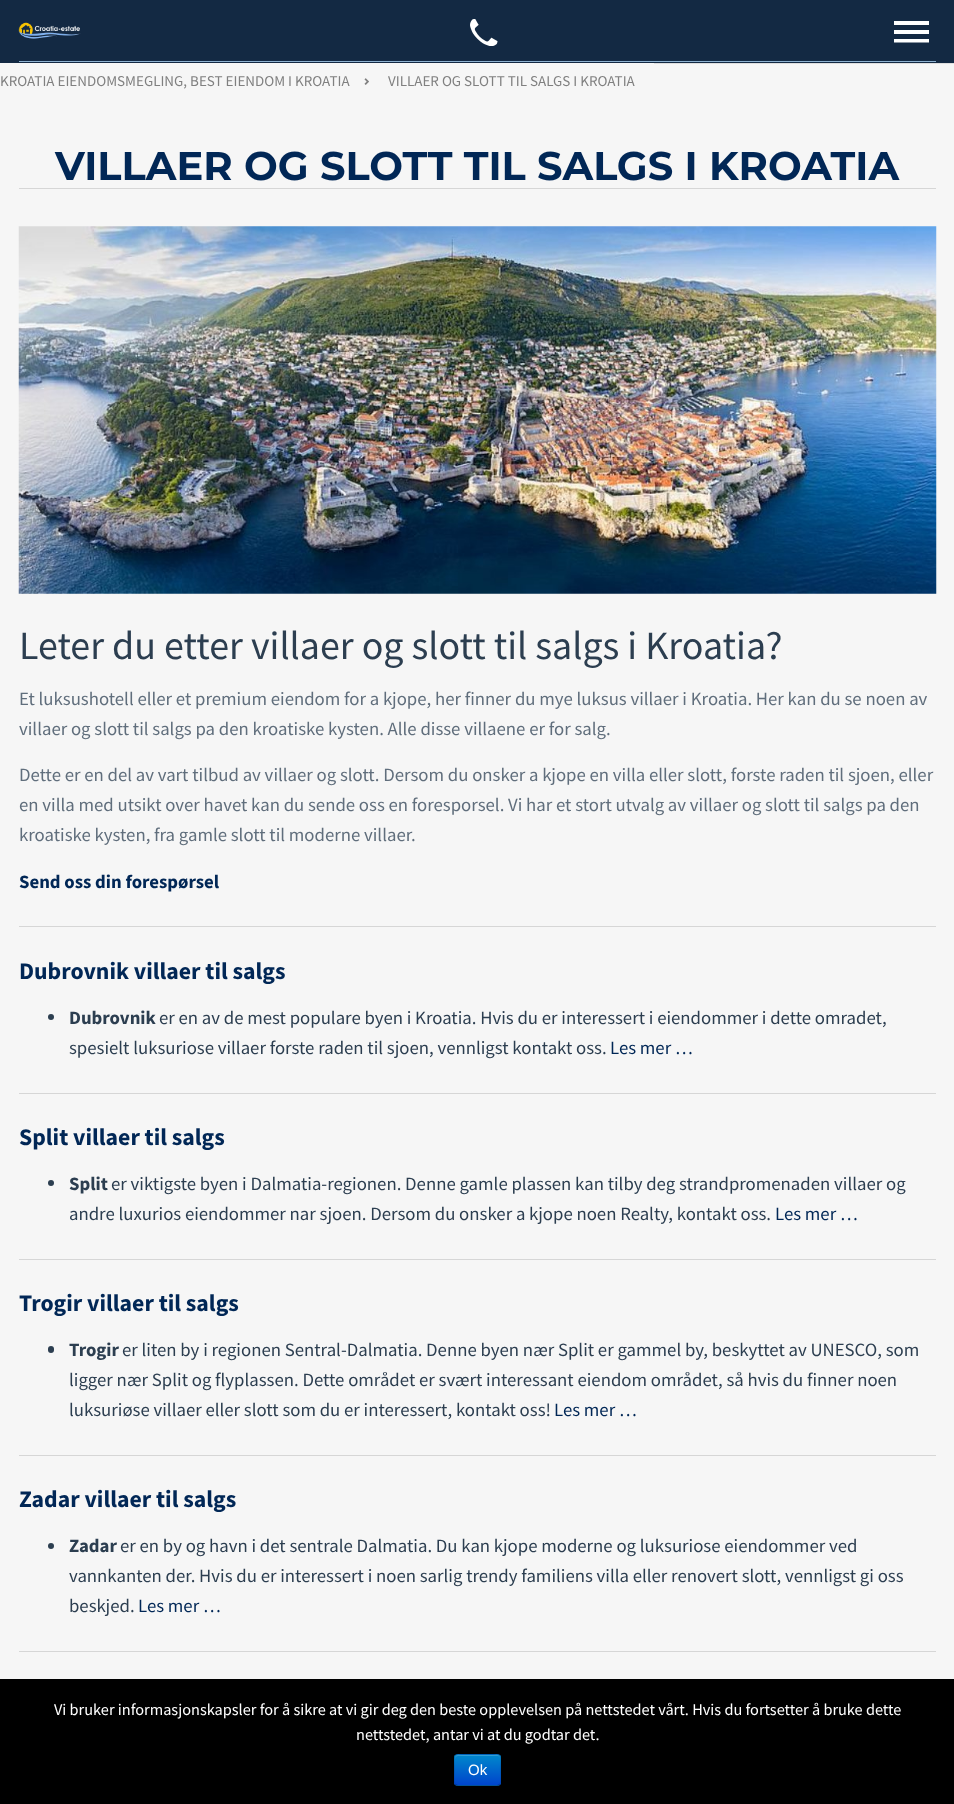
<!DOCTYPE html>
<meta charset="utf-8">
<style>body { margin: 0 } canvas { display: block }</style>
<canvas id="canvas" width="954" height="1804"></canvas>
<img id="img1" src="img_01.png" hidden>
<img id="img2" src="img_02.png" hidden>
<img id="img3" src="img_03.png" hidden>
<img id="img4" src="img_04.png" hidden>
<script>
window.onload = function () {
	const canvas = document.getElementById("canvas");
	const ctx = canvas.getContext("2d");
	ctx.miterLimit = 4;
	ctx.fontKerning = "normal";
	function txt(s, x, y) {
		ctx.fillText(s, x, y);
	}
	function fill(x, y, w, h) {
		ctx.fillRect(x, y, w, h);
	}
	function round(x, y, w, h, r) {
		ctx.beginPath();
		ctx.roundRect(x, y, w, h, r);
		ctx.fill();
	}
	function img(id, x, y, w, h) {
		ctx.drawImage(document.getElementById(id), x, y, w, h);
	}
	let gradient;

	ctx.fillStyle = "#F6F6F6";
	fill(0, 0, 954, 1804);
	ctx.fillStyle = "#132943";
	fill(0, 0, 954, 63);
	ctx.fillStyle = "#8DB1D0";
	fill(19, 61, 917, 1);
	img("img1", 18, 22, 63, 17);
	img("img2", 470, 19, 28, 27);
	ctx.fillStyle = "#FFFFFF";
	ctx.beginPath();
	ctx.moveTo(894, 39);
	ctx.lineTo(929, 39);
	ctx.lineTo(929, 42.5);
	ctx.lineTo(894, 42.5);
	ctx.closePath();
	ctx.moveTo(894, 30);
	ctx.lineTo(929, 30);
	ctx.lineTo(929, 34);
	ctx.lineTo(894, 34);
	ctx.closePath();
	ctx.moveTo(894, 21);
	ctx.lineTo(929, 21);
	ctx.lineTo(929, 25);
	ctx.lineTo(894, 25);
	ctx.closePath();
	ctx.fill();
	ctx.fillStyle = "#DEDEDE";
	fill(654, 63, 300, 1);
	img("img3", 364, 78, 5, 7);
	ctx.fillStyle = "#D6D6D6";
	fill(19, 188, 917, 1);
	img("img4", 18, 226, 919, 368);
	fill(19, 926, 917, 1);
	ctx.fillStyle = "#2C3E50";
	ctx.beginPath();
	ctx.arc(51, 1017, 3, 0, Math.PI * 2);
	ctx.fill();
	ctx.fillStyle = "#D6D6D6";
	fill(19, 1093, 917, 1);
	ctx.fillStyle = "#2C3E50";
	ctx.beginPath();
	ctx.arc(51, 1183, 3, 0, Math.PI * 2);
	ctx.fill();
	ctx.fillStyle = "#D6D6D6";
	fill(19, 1259, 917, 1);
	ctx.fillStyle = "#2C3E50";
	round(48, 1346, 6, 7, 3);
	ctx.fillStyle = "#D6D6D6";
	fill(19, 1455, 917, 1);
	ctx.fillStyle = "#2C3E50";
	ctx.beginPath();
	ctx.arc(51, 1546, 3, 0, Math.PI * 2);
	ctx.fill();
	ctx.fillStyle = "#D6D6D6";
	fill(19, 1651, 917, 1);
	ctx.fillStyle = "#000000";
	fill(0, 1679, 954, 125);
	ctx.fillStyle = "#006DCC";
	round(454, 1754, 47, 32, 4);
	ctx.save();
	ctx.beginPath();
	ctx.roundRect(454, 1754, 47, 32, 4);
	ctx.clip();
	gradient = ctx.createLinearGradient(478, 1755, 478, 1785);
	gradient.addColorStop(0, "#0088CC");
	gradient.addColorStop(1, "#0044CC");
	ctx.fillStyle = gradient;
	fill(454, 1755, 47, 30);
	ctx.restore();
	ctx.fillStyle = "#339FD6";
	ctx.beginPath();
	ctx.moveTo(458, 1756);
	ctx.lineTo(498, 1756);
	ctx.bezierCurveTo(499, 1756, 500, 1757, 500, 1759);
	ctx.bezierCurveTo(500, 1753, 496, 1755, 491, 1755);
	ctx.lineTo(464, 1755);
	ctx.bezierCurveTo(459, 1755, 455, 1753, 455, 1759);
	ctx.bezierCurveTo(455, 1757, 456, 1756, 458, 1756);
	ctx.closePath();
	ctx.fill();
	ctx.beginPath();
	ctx.moveTo(499.5, 1784.5);
	ctx.lineTo(497.5, 1785.5);
	ctx.lineTo(457.5, 1785.5);
	ctx.lineTo(455.5, 1784.5);
	ctx.strokeStyle = "rgba(0, 0, 0, 0.25)";
	ctx.lineWidth = 1.2;
	ctx.stroke();
	ctx.beginPath();
	ctx.moveTo(455.5, 1784.5);
	ctx.bezierCurveTo(453, 1782.5, 454.5, 1773, 454.5, 1770);
	ctx.bezierCurveTo(454.5, 1755.5, 451, 1754.5, 464, 1754.5);
	ctx.lineTo(491, 1754.5);
	ctx.bezierCurveTo(504, 1754.5, 500.5, 1755.5, 500.5, 1770);
	ctx.bezierCurveTo(500.5, 1773, 502, 1782.5, 499.5, 1784.5);
	ctx.strokeStyle = "rgba(0, 0, 0, 0.1)";
	ctx.stroke();
	ctx.font = "15px Source Sans Pro";
	ctx.fillStyle = "#808080";
	txt("KROATIA EIENDOMSMEGLING, BEST EIENDOM I KROATIA", 0, 86);
	txt("VILLAER OG SLOTT TIL SALGS I KROATIA", 388, 86);
	ctx.font = "bold 40px Montserrat";
	ctx.fillStyle = "#012756";
	txt("VILLAER OG SLOTT TIL SALGS I KROATIA", 55, 180);
	ctx.font = "40px Source Sans Pro";
	ctx.fillStyle = "#2C3E50";
	txt("Leter du etter villaer og slott til salgs i Kroatia?", 19, 659);
	ctx.font = "18.75px Source Sans Pro";
	ctx.fillStyle = "#606E7C";
	txt("Et luksushotell eller et premium eiendom for a kjope, her finner du mye luksus villaer i Kroatia. Her kan du se noen av", 19, 705);
	txt("villaer og slott til salgs pa den kroatiske kysten. Alle disse villaene er for salg.", 19, 735);
	txt("Dette er en del av vart tilbud av villaer og slott. Dersom du onsker a kjope en villa eller slott, forste raden til sjoen, eller", 19, 781);
	txt("en villa med utsikt over havet kan du sende oss en foresporsel. Vi har et stort utvalg av villaer og slott til salgs pa den", 19, 811);
	txt("kroatiske kysten, fra gamle slott til moderne villaer.", 19, 841);
	ctx.font = "bold 18.75px Source Sans Pro";
	ctx.fillStyle = "#012756";
	txt("Send oss din forespørsel", 19, 888);
	ctx.font = "bold 23.75px Source Sans Pro";
	txt("Dubrovnik villaer til salgs", 19, 979);
	ctx.font = "bold 18.75px Source Sans Pro";
	ctx.fillStyle = "#2C3E50";
	txt("Dubrovnik", 69, 1024);
	ctx.font = "18.75px Source Sans Pro";
	txt("er en av de mest populare byen i Kroatia. Hvis du er interessert i eiendommer i dette omradet,", 159, 1024);
	txt("spesielt luksuriose villaer forste raden til sjoen, vennligst kontakt oss.", 69, 1054);
	ctx.fillStyle = "#012756";
	txt("Les mer …", 610, 1054);
	ctx.font = "bold 23.75px Source Sans Pro";
	txt("Split villaer til salgs", 19, 1145);
	ctx.font = "bold 18.75px Source Sans Pro";
	ctx.fillStyle = "#2C3E50";
	txt("Split", 69, 1190);
	ctx.font = "18.75px Source Sans Pro";
	txt("er viktigste byen i Dalmatia-regionen. Denne gamle plassen kan tilby deg strandpromenaden villaer og", 111, 1190);
	txt("andre luxurios eiendommer nar sjoen. Dersom du onsker a kjope noen Realty, kontakt oss.", 69, 1220);
	ctx.fillStyle = "#012756";
	txt("Les mer …", 775, 1220);
	ctx.font = "bold 23.75px Source Sans Pro";
	txt("Trogir villaer til salgs", 19, 1311);
	ctx.font = "bold 18.75px Source Sans Pro";
	ctx.fillStyle = "#2C3E50";
	txt("Trogir", 69, 1356);
	ctx.font = "18.75px Source Sans Pro";
	txt("er liten by i regionen Sentral-Dalmatia. Denne byen nær Split er gammel by, beskyttet av UNESCO, som", 122, 1356);
	txt("ligger nær Split og flyplassen. Dette området er svært interessant eiendom området, så hvis du finner noen", 69, 1386);
	txt("luksuriøse villaer eller slott som du er interessert, kontakt oss!", 69, 1416);
	ctx.fillStyle = "#012756";
	txt("Les mer …", 554, 1416);
	ctx.font = "bold 23.75px Source Sans Pro";
	txt("Zadar villaer til salgs", 19, 1507);
	ctx.font = "bold 18.75px Source Sans Pro";
	ctx.fillStyle = "#2C3E50";
	txt("Zadar", 69, 1552);
	ctx.font = "18.75px Source Sans Pro";
	txt("er en by og havn i det sentrale Dalmatia. Du kan kjope moderne og luksuriose eiendommer ved", 120, 1552);
	txt("vannkanten der. Hvis du er interessert i noen sarlig trendy familiens villa eller renovert slott, vennligst gi oss", 69, 1582);
	txt("beskjed.", 69, 1612);
	ctx.fillStyle = "#012756";
	txt("Les mer …", 138, 1612);
	ctx.font = "16.25px Source Sans Pro";
	ctx.fillStyle = "#FFFFFF";
	txt("Vi bruker informasjonskapsler for å sikre at vi gir deg den beste opplevelsen på nettstedet vårt. Hvis du fortsetter å bruke dette", 54, 1715);
	txt("nettstedet, antar vi at du godtar det.", 356, 1740);
	ctx.font = "15px Liberation Sans";
	txt("Ok", 468, 1775);
};
</script>
